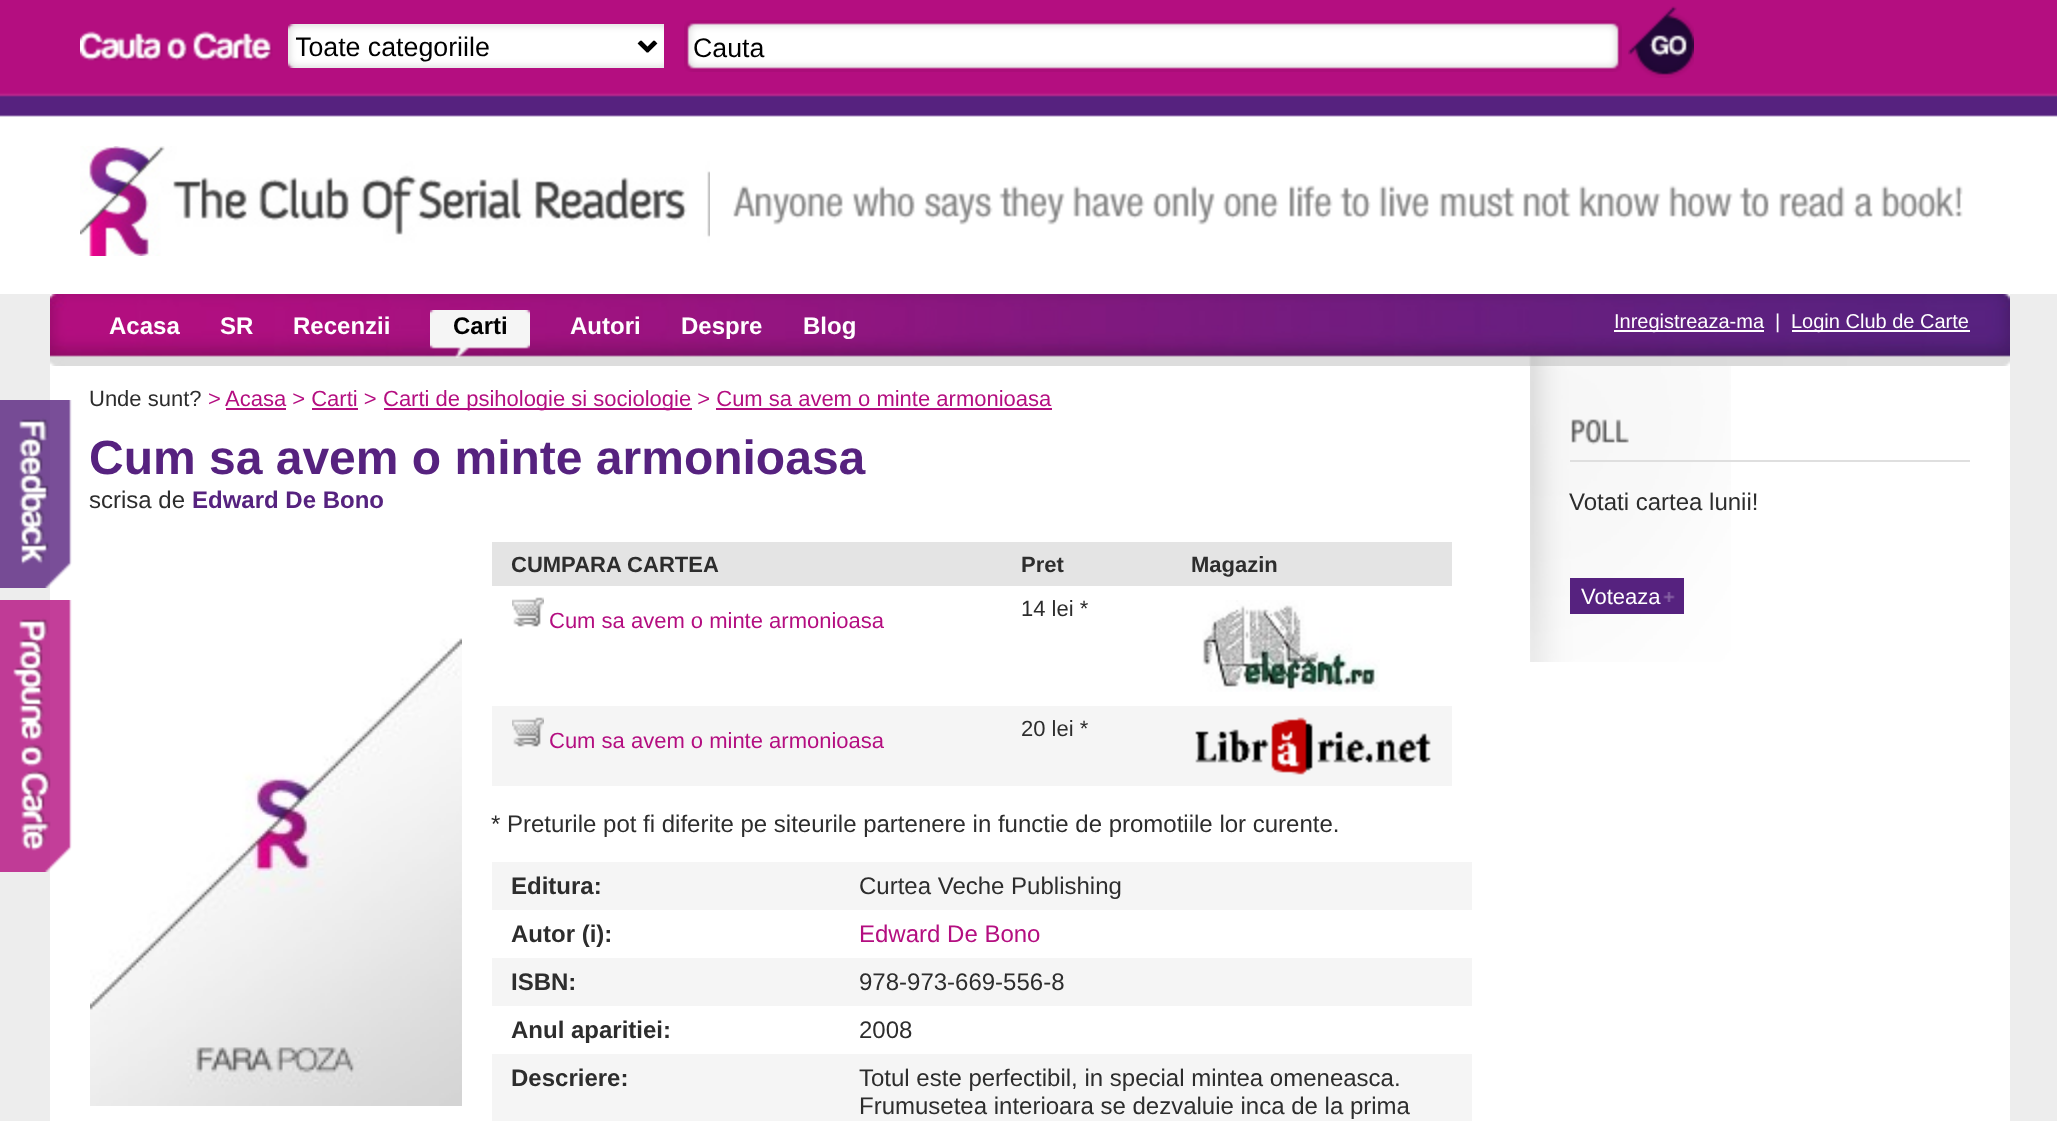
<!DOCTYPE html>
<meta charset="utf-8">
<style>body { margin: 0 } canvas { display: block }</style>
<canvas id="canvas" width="2057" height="1121"></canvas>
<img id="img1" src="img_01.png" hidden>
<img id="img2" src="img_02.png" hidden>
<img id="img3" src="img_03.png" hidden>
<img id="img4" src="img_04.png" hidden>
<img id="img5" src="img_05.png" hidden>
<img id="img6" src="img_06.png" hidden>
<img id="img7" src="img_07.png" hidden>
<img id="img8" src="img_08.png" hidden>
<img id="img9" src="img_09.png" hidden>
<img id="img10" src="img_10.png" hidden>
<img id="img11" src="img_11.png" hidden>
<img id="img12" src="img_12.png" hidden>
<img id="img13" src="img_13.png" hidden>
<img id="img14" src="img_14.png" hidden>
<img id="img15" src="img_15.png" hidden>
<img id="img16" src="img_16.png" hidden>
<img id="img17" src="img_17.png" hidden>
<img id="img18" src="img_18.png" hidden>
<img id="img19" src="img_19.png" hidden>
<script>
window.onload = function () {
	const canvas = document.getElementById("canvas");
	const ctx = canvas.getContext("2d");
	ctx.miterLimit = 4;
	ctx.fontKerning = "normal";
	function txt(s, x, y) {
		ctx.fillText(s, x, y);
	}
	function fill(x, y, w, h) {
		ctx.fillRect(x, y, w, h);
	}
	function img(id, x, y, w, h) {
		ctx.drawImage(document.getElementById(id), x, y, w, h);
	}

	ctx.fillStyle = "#EDEDED";
	fill(0, 0, 2057, 1121);
	img("img1", 0, 0, 2057, 294);
	img("img2", 80, 31, 193, 30);
	img("img3", 288, 24, 376, 44);
	ctx.beginPath();
	ctx.moveTo(639, 42);
	ctx.lineTo(647, 50);
	ctx.lineTo(655, 42);
	ctx.strokeStyle = "#000000";
	ctx.lineWidth = 4;
	ctx.stroke();
	img("img4", 684, 20, 938, 52);
	img("img5", 1628, 6, 66, 72);
	img("img6", 80, 146, 630, 110);
	img("img7", 733, 185, 1230, 40);
	img("img8", 50, 294, 1960, 72);
	img("img9", 430, 310, 100, 48);
	ctx.fillStyle = "#FFFFFF";
	fill(1614, 330, 150, 2);
	fill(1792, 330, 178, 2);
	fill(50, 366, 1960, 755);
	img("img10", 0, 400, 72, 188);
	ctx.fillStyle = "#B40E80";
	fill(226, 408, 60, 2);
	fill(384, 408, 308, 2);
	fill(312, 408, 46, 2);
	fill(716, 408, 336, 2);
	img("img11", 90, 638, 372, 468);
	ctx.fillStyle = "#E4E4E4";
	fill(492, 542, 960, 44);
	img("img12", 512, 597, 32, 30);
	img("img13", 1202, 600, 178, 92);
	ctx.fillStyle = "#F5F5F5";
	fill(492, 706, 960, 80);
	img("img14", 1195, 717, 236, 58);
	img("img15", 512, 717, 32, 30);
	fill(492, 862, 980, 48);
	fill(492, 958, 980, 48);
	fill(492, 1054, 980, 67);
	img("img16", 1530, 366, 201, 296);
	img("img17", 1571, 419, 58, 26);
	ctx.fillStyle = "#DFDFDF";
	fill(1570, 460, 400, 2);
	ctx.fillStyle = "#56227F";
	fill(1570, 578, 114, 36);
	img("img18", 1663, 592, 12, 10);
	img("img19", 0, 600, 72, 272);
	ctx.save();
	ctx.beginPath();
	ctx.rect(296, 30, 330, 34);
	ctx.clip();
	ctx.font = "26.75px Liberation Sans";
	ctx.fillStyle = "#000000";
	txt("Toate categoriile", 295, 56);
	ctx.restore();
	ctx.font = "26.75px Liberation Sans";
	ctx.fillStyle = "#000000";
	txt("Cauta", 693, 57);
	ctx.font = "bold 24px Liberation Sans";
	ctx.fillStyle = "#FFFFFF";
	txt("Acasa", 109, 334);
	txt("SR", 220, 334);
	txt("Recenzii", 293, 334);
	ctx.fillStyle = "#000000";
	txt("Carti", 453, 334);
	ctx.fillStyle = "#FFFFFF";
	txt("Autori", 570, 334);
	txt("Despre", 681, 334);
	txt("Blog", 803, 334);
	ctx.font = "20px Liberation Sans";
	txt("Inregistreaza-ma", 1614, 328);
	txt("|", 1775, 328);
	txt("Login Club de Carte", 1791, 328);
	ctx.font = "22px Liberation Sans";
	ctx.fillStyle = "#2D2D2D";
	txt("Unde sunt?", 89, 406);
	ctx.fillStyle = "#B40E80";
	txt(">", 208, 406);
	txt("Acasa > Carti >", 225, 406);
	txt("Carti de psihologie si sociologie > Cum sa avem o minte armonioasa", 383, 406);
	ctx.font = "bold 48px Liberation Sans";
	ctx.fillStyle = "#56227F";
	txt("Cum sa avem o minte armonioasa", 89, 474);
	ctx.font = "24px Liberation Sans";
	ctx.fillStyle = "#2D2D2D";
	txt("scrisa de", 89, 508);
	ctx.font = "bold 24px Liberation Sans";
	ctx.fillStyle = "#56227F";
	txt("Edward De Bono", 192, 508);
	ctx.font = "bold 22px Liberation Sans";
	ctx.fillStyle = "#2D2D2D";
	txt("CUMPARA CARTEA", 511, 572);
	txt("Pret", 1021, 572);
	txt("Magazin", 1191, 572);
	ctx.font = "22px Liberation Sans";
	ctx.fillStyle = "#B40E80";
	txt("Cum sa avem o minte armonioasa", 549, 628);
	ctx.fillStyle = "#2D2D2D";
	txt("14 lei *", 1021, 616);
	txt("20 lei *", 1021, 736);
	ctx.fillStyle = "#B40E80";
	txt("Cum sa avem o minte armonioasa", 549, 748);
	ctx.font = "24px Liberation Sans";
	ctx.fillStyle = "#2D2D2D";
	txt("* Preturile pot fi diferite pe siteurile partenere in functie de promotiile lor curente.", 491, 832);
	ctx.font = "bold 24px Liberation Sans";
	txt("Editura:", 511, 894);
	ctx.font = "24px Liberation Sans";
	txt("Curtea Veche Publishing", 859, 894);
	ctx.font = "bold 24px Liberation Sans";
	txt("Autor (i):", 511, 942);
	ctx.font = "24px Liberation Sans";
	ctx.fillStyle = "#B40E80";
	txt("Edward De Bono", 859, 942);
	ctx.font = "bold 24px Liberation Sans";
	ctx.fillStyle = "#2D2D2D";
	txt("ISBN:", 511, 990);
	ctx.font = "24px Liberation Sans";
	txt("978-973-669-556-8", 859, 990);
	ctx.font = "bold 24px Liberation Sans";
	txt("Anul aparitiei:", 511, 1038);
	ctx.font = "24px Liberation Sans";
	txt("2008", 859, 1038);
	ctx.font = "bold 24px Liberation Sans";
	txt("Descriere:", 511, 1086);
	ctx.font = "24px Liberation Sans";
	txt("Totul este perfectibil, in special mintea omeneasca.", 859, 1086);
	txt("Frumusetea interioara se dezvaluie inca de la prima", 859, 1114);
	txt("Votati cartea lunii!", 1569, 510);
	ctx.font = "22px Liberation Sans";
	ctx.fillStyle = "#FFFFFF";
	txt("Voteaza", 1581, 604);
};
</script>
